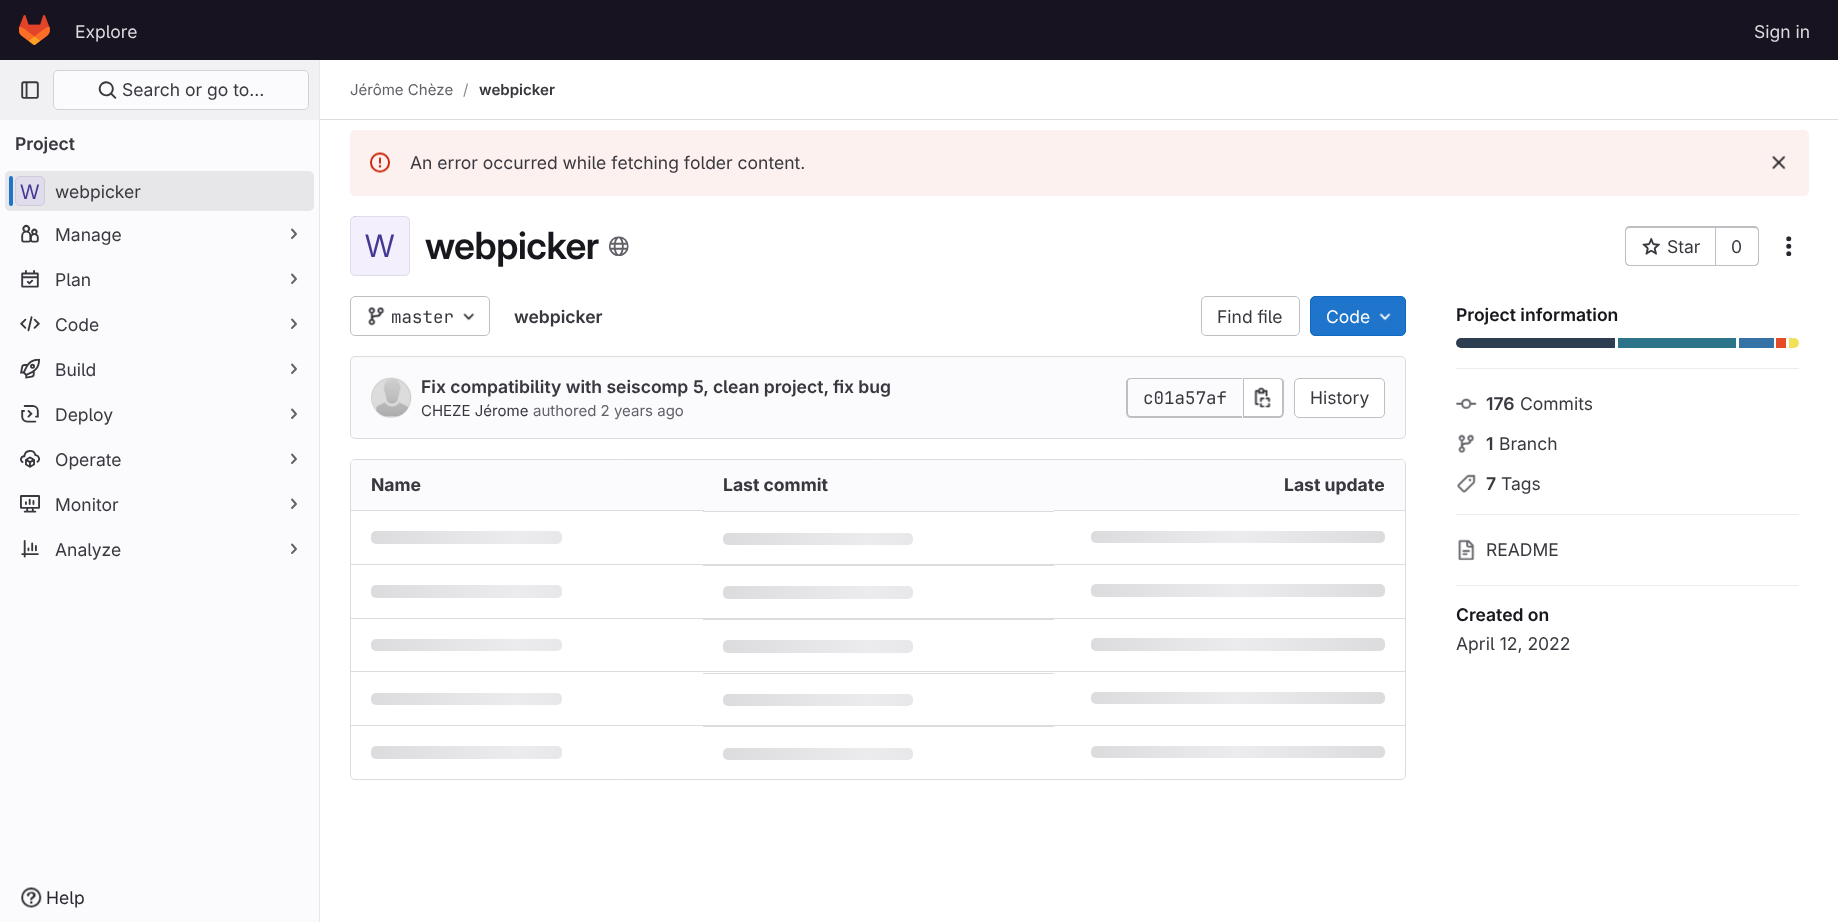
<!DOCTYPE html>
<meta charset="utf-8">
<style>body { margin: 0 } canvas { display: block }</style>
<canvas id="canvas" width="1838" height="922"></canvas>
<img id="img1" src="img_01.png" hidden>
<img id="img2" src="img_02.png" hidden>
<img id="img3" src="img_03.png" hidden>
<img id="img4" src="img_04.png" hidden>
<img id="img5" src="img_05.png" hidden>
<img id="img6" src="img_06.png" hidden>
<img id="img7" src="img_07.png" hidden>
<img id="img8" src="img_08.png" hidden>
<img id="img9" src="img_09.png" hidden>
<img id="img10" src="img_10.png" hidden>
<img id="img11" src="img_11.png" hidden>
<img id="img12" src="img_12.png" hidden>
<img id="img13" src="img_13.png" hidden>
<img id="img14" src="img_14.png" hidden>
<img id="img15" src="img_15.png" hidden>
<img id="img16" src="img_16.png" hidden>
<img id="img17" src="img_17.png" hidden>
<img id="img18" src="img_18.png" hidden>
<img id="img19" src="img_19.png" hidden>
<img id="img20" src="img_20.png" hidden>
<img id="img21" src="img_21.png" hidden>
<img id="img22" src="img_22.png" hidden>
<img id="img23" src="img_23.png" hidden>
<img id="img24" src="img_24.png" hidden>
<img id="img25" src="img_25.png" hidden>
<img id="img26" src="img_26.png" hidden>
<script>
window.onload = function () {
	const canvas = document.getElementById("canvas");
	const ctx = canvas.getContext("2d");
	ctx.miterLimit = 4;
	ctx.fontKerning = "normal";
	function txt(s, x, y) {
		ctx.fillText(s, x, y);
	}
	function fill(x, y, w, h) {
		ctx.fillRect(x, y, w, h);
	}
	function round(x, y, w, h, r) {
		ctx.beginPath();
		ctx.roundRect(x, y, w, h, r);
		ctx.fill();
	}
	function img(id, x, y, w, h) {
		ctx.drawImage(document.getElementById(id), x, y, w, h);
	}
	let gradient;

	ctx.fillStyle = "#FFFFFF";
	fill(0, 0, 1838, 922);
	ctx.fillStyle = "#171321";
	fill(0, 0, 1838, 60);
	img("img1", 19, 15, 31, 30);
	ctx.fillStyle = "#FBFAFD";
	fill(0, 120, 319, 802);
	ctx.fillStyle = "#E7E6E9";
	fill(319, 60, 1, 862);
	ctx.fillStyle = "#F1F0F3";
	fill(0, 60, 319, 60);
	img("img2", 21, 81, 18, 18);
	ctx.fillStyle = "#FBFAFD";
	round(53, 70, 256, 40, 5);
	ctx.beginPath();
	ctx.roundRect(53.5, 70.5, 255, 39, 4.5);
	ctx.strokeStyle = "rgba(5, 5, 6, 0.16)";
	ctx.stroke();
	img("img3", 98, 81, 19, 18);
	ctx.fillStyle = "#E7E6E9";
	round(5, 171, 309, 40, 5);
	ctx.fillStyle = "#1F75CB";
	round(9, 176, 4, 30, 2);
	ctx.fillStyle = "#E0DCEB";
	round(15, 176, 30, 30, 5);
	ctx.beginPath();
	ctx.roundRect(15.5, 176.5, 29, 29, 4.5);
	ctx.strokeStyle = "rgba(5, 5, 6, 0.08)";
	ctx.stroke();
	img("img4", 21, 224, 18, 19);
	ctx.beginPath();
	ctx.moveTo(292, 229.5);
	ctx.lineTo(296, 234);
	ctx.lineTo(292, 238);
	ctx.strokeStyle = "#626168";
	ctx.lineWidth = 1.9;
	ctx.lineCap = "round";
	ctx.lineJoin = "round";
	ctx.stroke();
	img("img5", 21, 270, 18, 18);
	ctx.beginPath();
	ctx.moveTo(292, 274.5);
	ctx.lineTo(296, 279);
	ctx.lineTo(292, 283);
	ctx.stroke();
	img("img6", 20, 316, 20, 16);
	ctx.beginPath();
	ctx.moveTo(292, 319.5);
	ctx.lineTo(296, 324);
	ctx.lineTo(292, 328);
	ctx.stroke();
	img("img7", 20, 358, 20, 21);
	ctx.beginPath();
	ctx.moveTo(292, 364.5);
	ctx.lineTo(296, 369);
	ctx.lineTo(292, 373);
	ctx.stroke();
	img("img8", 21, 405, 18, 18);
	ctx.beginPath();
	ctx.moveTo(292, 409.5);
	ctx.lineTo(296, 414);
	ctx.lineTo(292, 418);
	ctx.stroke();
	img("img9", 20, 450, 20, 18);
	ctx.beginPath();
	ctx.moveTo(292, 454.5);
	ctx.lineTo(296, 459);
	ctx.lineTo(292, 463);
	ctx.stroke();
	img("img10", 20, 495, 20, 18);
	ctx.beginPath();
	ctx.moveTo(292, 499.5);
	ctx.lineTo(296, 504);
	ctx.lineTo(292, 508);
	ctx.stroke();
	img("img11", 21, 540, 18, 18);
	ctx.beginPath();
	ctx.moveTo(292, 544.5);
	ctx.lineTo(296, 549);
	ctx.lineTo(292, 553);
	ctx.stroke();
	img("img12", 21, 887, 21, 21);
	ctx.fillStyle = "#DCDCDE";
	fill(320, 119, 1518, 1);
	ctx.fillStyle = "#FCF1EF";
	round(350, 130, 1459, 66, 5);
	img("img13", 370, 152, 20, 21);
	img("img14", 1771, 155, 15, 15);
	ctx.fillStyle = "#F3EFFC";
	round(350, 216, 60, 60, 5);
	ctx.beginPath();
	ctx.roundRect(350.5, 216.5, 59, 59, 4.5);
	ctx.strokeStyle = "rgba(5, 5, 6, 0.08)";
	ctx.lineWidth = 1;
	ctx.lineJoin = "miter";
	ctx.stroke();
	img("img15", 608, 236, 21, 21);
	ctx.fillStyle = "#BFBFC3";
	ctx.beginPath();
	ctx.moveTo(1630, 226);
	ctx.lineTo(1715, 226);
	ctx.lineTo(1715, 266);
	ctx.lineTo(1630, 266);
	ctx.bezierCurveTo(1627, 266, 1625, 264, 1625, 261);
	ctx.lineTo(1625, 231);
	ctx.bezierCurveTo(1625, 228, 1627, 226, 1630, 226);
	ctx.closePath();
	ctx.moveTo(1630, 228);
	ctx.lineTo(1715, 228);
	ctx.lineTo(1715, 265);
	ctx.lineTo(1630, 265);
	ctx.bezierCurveTo(1628, 265, 1626, 263, 1626, 261);
	ctx.lineTo(1626, 231);
	ctx.bezierCurveTo(1626, 229, 1628, 228, 1630, 228);
	ctx.closePath();
	ctx.fill("evenodd");
	img("img16", 1642, 238, 18, 17);
	ctx.beginPath();
	ctx.moveTo(1716, 226);
	ctx.lineTo(1754, 226);
	ctx.bezierCurveTo(1757, 226, 1759, 228, 1759, 231);
	ctx.lineTo(1759, 261);
	ctx.bezierCurveTo(1759, 264, 1757, 266, 1754, 266);
	ctx.lineTo(1716, 266);
	ctx.closePath();
	ctx.moveTo(1716, 228);
	ctx.lineTo(1754, 228);
	ctx.bezierCurveTo(1756, 228, 1758, 229, 1758, 231);
	ctx.lineTo(1758, 261);
	ctx.bezierCurveTo(1758, 263, 1756, 265, 1754, 265);
	ctx.lineTo(1716, 265);
	ctx.closePath();
	ctx.fill("evenodd");
	fill(1715, 226, 1, 40);
	img("img17", 1786, 236, 6, 21);
	ctx.beginPath();
	ctx.roundRect(350.5, 296.5, 139, 39, 4.5);
	ctx.strokeStyle = "#BFBFC3";
	ctx.stroke();
	img("img18", 368, 307, 17, 19);
	img("img19", 463, 313, 12, 8);
	ctx.beginPath();
	ctx.roundRect(1201.5, 296.5, 98, 39, 4.5);
	ctx.stroke();
	ctx.fillStyle = "#1F75CB";
	ctx.beginPath();
	ctx.roundRect(1310.5, 296.5, 95, 39, 4.5);
	ctx.fill();
	ctx.strokeStyle = "#1068BF";
	ctx.stroke();
	img("img20", 1379, 313, 12, 8);
	ctx.fillStyle = "#FBFAFD";
	ctx.beginPath();
	ctx.roundRect(350.5, 356.5, 1055, 82, 4.5);
	ctx.fill();
	ctx.strokeStyle = "#DCDCDE";
	ctx.stroke();
	img("img21", 371, 377, 41, 41);
	ctx.beginPath();
	ctx.arc(391, 398, 19.5, 0, Math.PI * 2);
	ctx.strokeStyle = "rgba(5, 5, 6, 0.08)";
	ctx.stroke();
	ctx.fillStyle = "#BFBFC3";
	ctx.beginPath();
	ctx.moveTo(1131, 378);
	ctx.lineTo(1242, 378);
	ctx.lineTo(1242, 418);
	ctx.lineTo(1131, 418);
	ctx.bezierCurveTo(1128, 418, 1126, 415, 1126, 412);
	ctx.lineTo(1126, 382);
	ctx.bezierCurveTo(1126, 380, 1128, 378, 1131, 378);
	ctx.closePath();
	ctx.moveTo(1131, 379);
	ctx.lineTo(1242, 379);
	ctx.lineTo(1242, 416);
	ctx.lineTo(1131, 416);
	ctx.bezierCurveTo(1129, 416, 1128, 415, 1128, 412);
	ctx.lineTo(1128, 382);
	ctx.bezierCurveTo(1128, 380, 1129, 379, 1131, 379);
	ctx.closePath();
	ctx.fill("evenodd");
	ctx.fillStyle = "#FFFFFF";
	ctx.beginPath();
	ctx.roundRect(1244, 379, 39, 37, [0, 4, 4, 0]);
	ctx.fill();
	ctx.fillStyle = "#BFBFC3";
	ctx.beginPath();
	ctx.moveTo(1244, 378);
	ctx.lineTo(1279, 378);
	ctx.bezierCurveTo(1282, 378, 1284, 380, 1284, 382);
	ctx.lineTo(1284, 412);
	ctx.bezierCurveTo(1284, 415, 1282, 418, 1279, 418);
	ctx.lineTo(1244, 418);
	ctx.closePath();
	ctx.moveTo(1244, 379);
	ctx.lineTo(1279, 379);
	ctx.bezierCurveTo(1281, 379, 1282, 380, 1282, 382);
	ctx.lineTo(1282, 412);
	ctx.bezierCurveTo(1282, 415, 1281, 416, 1279, 416);
	ctx.lineTo(1244, 416);
	ctx.closePath();
	ctx.fill("evenodd");
	fill(1243, 378, 1, 40);
	img("img22", 1254, 387, 17, 21);
	ctx.fillStyle = "#FFFFFF";
	ctx.beginPath();
	ctx.roundRect(1294.5, 378.5, 90, 39, 4.5);
	ctx.fill();
	ctx.strokeStyle = "#BFBFC3";
	ctx.stroke();
	ctx.beginPath();
	ctx.roundRect(350.5, 459.5, 1055, 320, 4.5);
	ctx.strokeStyle = "#DCDCDE";
	ctx.stroke();
	ctx.fillStyle = "#FBFAFD";
	ctx.beginPath();
	ctx.roundRect(351, 460, 352, 51, [4, 0, 0, 0]);
	ctx.fill();
	fill(703, 460, 351, 51);
	ctx.beginPath();
	ctx.roundRect(1054, 460, 351, 51, [0, 4, 0, 0]);
	ctx.fill();
	ctx.fillStyle = "#DCDCDE";
	fill(351, 564, 1054, 1);
	fill(351, 510, 353, 1);
	gradient = ctx.createLinearGradient(371, 531, 665, 531);
	gradient.addColorStop(0, "#DCDCDE");
	gradient.addColorStop(0.5, "#ECECEF");
	gradient.addColorStop(1, "#DCDCDE");
	ctx.fillStyle = gradient;
	round(371, 531, 191, 13, 5);
	ctx.fillStyle = "#DCDCDE";
	fill(703, 511, 351, 1);
	gradient = ctx.createLinearGradient(723, 533, 1016, 533);
	gradient.addColorStop(0, "#DCDCDE");
	gradient.addColorStop(0.5, "#ECECEF");
	gradient.addColorStop(1, "#DCDCDE");
	ctx.fillStyle = gradient;
	round(723, 533, 190, 12, 5);
	ctx.fillStyle = "#DCDCDE";
	fill(1054, 510, 351, 1);
	gradient = ctx.createLinearGradient(1091, 531, 1385, 531);
	gradient.addColorStop(0, "#DCDCDE");
	gradient.addColorStop(0.5, "#ECECEF");
	gradient.addColorStop(1, "#DCDCDE");
	ctx.fillStyle = gradient;
	round(1091, 531, 294, 12, 5);
	ctx.fillStyle = "#DCDCDE";
	fill(351, 618, 1054, 1);
	gradient = ctx.createLinearGradient(371, 585, 665, 585);
	gradient.addColorStop(0, "#DCDCDE");
	gradient.addColorStop(0.5, "#ECECEF");
	gradient.addColorStop(1, "#DCDCDE");
	ctx.fillStyle = gradient;
	round(371, 585, 191, 13, 5);
	ctx.fillStyle = "#DCDCDE";
	fill(703, 565, 351, 1);
	gradient = ctx.createLinearGradient(723, 586, 1016, 586);
	gradient.addColorStop(0, "#DCDCDE");
	gradient.addColorStop(0.5, "#ECECEF");
	gradient.addColorStop(1, "#DCDCDE");
	ctx.fillStyle = gradient;
	round(723, 586, 190, 13, 5);
	gradient = ctx.createLinearGradient(1091, 584, 1385, 584);
	gradient.addColorStop(0, "#DCDCDE");
	gradient.addColorStop(0.5, "#ECECEF");
	gradient.addColorStop(1, "#DCDCDE");
	ctx.fillStyle = gradient;
	round(1091, 584, 294, 13, 5);
	ctx.fillStyle = "#DCDCDE";
	fill(351, 671, 1054, 1);
	gradient = ctx.createLinearGradient(371, 639, 665, 639);
	gradient.addColorStop(0, "#DCDCDE");
	gradient.addColorStop(0.5, "#ECECEF");
	gradient.addColorStop(1, "#DCDCDE");
	ctx.fillStyle = gradient;
	round(371, 639, 191, 12, 5);
	ctx.fillStyle = "#DCDCDE";
	fill(703, 619, 351, 1);
	gradient = ctx.createLinearGradient(723, 640, 1016, 640);
	gradient.addColorStop(0, "#DCDCDE");
	gradient.addColorStop(0.5, "#ECECEF");
	gradient.addColorStop(1, "#DCDCDE");
	ctx.fillStyle = gradient;
	round(723, 640, 190, 13, 5);
	gradient = ctx.createLinearGradient(1091, 638, 1385, 638);
	gradient.addColorStop(0, "#DCDCDE");
	gradient.addColorStop(0.5, "#ECECEF");
	gradient.addColorStop(1, "#DCDCDE");
	ctx.fillStyle = gradient;
	round(1091, 638, 294, 13, 5);
	ctx.fillStyle = "#DCDCDE";
	fill(351, 725, 1054, 1);
	gradient = ctx.createLinearGradient(371, 693, 665, 693);
	gradient.addColorStop(0, "#DCDCDE");
	gradient.addColorStop(0.5, "#ECECEF");
	gradient.addColorStop(1, "#DCDCDE");
	ctx.fillStyle = gradient;
	round(371, 693, 191, 12, 5);
	ctx.fillStyle = "#DCDCDE";
	fill(703, 673, 351, 1);
	gradient = ctx.createLinearGradient(723, 694, 1016, 694);
	gradient.addColorStop(0, "#DCDCDE");
	gradient.addColorStop(0.5, "#ECECEF");
	gradient.addColorStop(1, "#DCDCDE");
	ctx.fillStyle = gradient;
	round(723, 694, 190, 12, 5);
	gradient = ctx.createLinearGradient(1091, 692, 1385, 692);
	gradient.addColorStop(0, "#DCDCDE");
	gradient.addColorStop(0.5, "#ECECEF");
	gradient.addColorStop(1, "#DCDCDE");
	ctx.fillStyle = gradient;
	round(1091, 692, 294, 12, 5);
	gradient = ctx.createLinearGradient(371, 746, 665, 746);
	gradient.addColorStop(0, "#DCDCDE");
	gradient.addColorStop(0.5, "#ECECEF");
	gradient.addColorStop(1, "#DCDCDE");
	ctx.fillStyle = gradient;
	round(371, 746, 191, 13, 5);
	ctx.fillStyle = "#DCDCDE";
	fill(703, 726, 351, 1);
	gradient = ctx.createLinearGradient(723, 748, 1016, 748);
	gradient.addColorStop(0, "#DCDCDE");
	gradient.addColorStop(0.5, "#ECECEF");
	gradient.addColorStop(1, "#DCDCDE");
	ctx.fillStyle = gradient;
	round(723, 748, 190, 12, 5);
	gradient = ctx.createLinearGradient(1091, 746, 1385, 746);
	gradient.addColorStop(0, "#DCDCDE");
	gradient.addColorStop(0.5, "#ECECEF");
	gradient.addColorStop(1, "#DCDCDE");
	ctx.fillStyle = gradient;
	round(1091, 746, 294, 12, 5);
	ctx.fillStyle = "#ECECEF";
	fill(1456, 368, 343, 1);
	ctx.fillStyle = "#2C3E50";
	ctx.beginPath();
	ctx.roundRect(1456, 338, 159, 10, [5, 0, 0, 5]);
	ctx.fill();
	ctx.fillStyle = "#2B7489";
	fill(1618, 338, 118, 10);
	ctx.fillStyle = "#3572A5";
	fill(1739, 338, 35, 10);
	ctx.fillStyle = "#E34C26";
	fill(1776, 338, 10, 10);
	ctx.fillStyle = "#F1E05A";
	ctx.beginPath();
	ctx.roundRect(1789, 338, 10, 10, [0, 5, 5, 0]);
	ctx.fill();
	ctx.fillStyle = "#ECECEF";
	fill(1456, 514, 343, 1);
	img("img23", 1456, 398, 21, 11);
	img("img24", 1458, 434, 17, 19);
	img("img25", 1457, 474, 19, 19);
	fill(1456, 585, 343, 1);
	img("img26", 1458, 539, 17, 22);
	ctx.font = "17.5px 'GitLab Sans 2'";
	ctx.fillStyle = "#DCDCDE";
	txt("Explore", 75, 38);
	txt("Sign in", 1754, 38);
	ctx.fillStyle = "#3A383F";
	txt("Search or go to…", 122, 96);
	ctx.font = "600 17.5px 'GitLab Sans 2'";
	txt("Project", 15, 150);
	ctx.font = "20px 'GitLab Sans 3'";
	ctx.fillStyle = "#453894";
	txt("W", 20, 199);
	ctx.font = "17.5px 'GitLab Sans 2'";
	ctx.fillStyle = "#3A383F";
	txt("webpicker", 55, 198);
	txt("Manage", 55, 241);
	txt("Plan", 55, 286);
	txt("Code", 55, 331);
	txt("Build", 55, 376);
	txt("Deploy", 55, 421);
	txt("Operate", 55, 466);
	txt("Monitor", 55, 511);
	txt("Analyze", 55, 556);
	ctx.fillStyle = "#28272D";
	txt("Help", 46, 904);
	ctx.font = "15px 'GitLab Sans 2'";
	ctx.fillStyle = "#626168";
	txt("Jérôme Chèze", 350, 95);
	ctx.fillStyle = "#89888D";
	txt("/", 463, 95);
	ctx.font = "600 15px 'GitLab Sans 2'";
	ctx.fillStyle = "#3A383F";
	txt("webpicker", 479, 95);
	ctx.font = "17.5px 'GitLab Sans 2'";
	txt("An error occurred while fetching folder content.", 410, 169);
	ctx.font = "31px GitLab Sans";
	ctx.fillStyle = "#453894";
	txt("W", 365, 257);
	ctx.letterSpacing = "-0.4px";
	ctx.font = "600 37.5px GitLab Sans";
	ctx.fillStyle = "#18171D";
	txt("webpicker", 425, 259);
	ctx.letterSpacing = "0px";
	ctx.font = "17.5px 'GitLab Sans 2'";
	ctx.fillStyle = "#3A383F";
	txt("Star", 1667, 253);
	txt("0", 1731, 253);
	ctx.font = "17.5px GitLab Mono";
	txt("master", 391, 323);
	ctx.font = "600 17.5px 'GitLab Sans 2'";
	txt("webpicker", 514, 323);
	ctx.font = "17.5px 'GitLab Sans 2'";
	txt("Find file", 1217, 323);
	ctx.fillStyle = "#FFFFFF";
	txt("Code", 1326, 323);
	ctx.font = "600 17.5px 'GitLab Sans 2'";
	ctx.fillStyle = "#3A383F";
	txt("Fix compatibility with seiscomp 5, clean project, fix bug", 421, 393);
	ctx.font = "15px 'GitLab Sans 2'";
	txt("CHEZE Jérome", 421, 416);
	ctx.fillStyle = "#626168";
	txt("authored 2 years ago", 533, 416);
	ctx.font = "17.5px GitLab Mono";
	ctx.fillStyle = "#3A383F";
	txt("c01a57af", 1143, 404);
	ctx.font = "17.5px 'GitLab Sans 2'";
	txt("History", 1310, 404);
	ctx.font = "bold 17.5px GitLab Sans";
	txt("Name", 371, 491);
	txt("Last commit", 723, 491);
	txt("Last update", 1284, 491);
	ctx.font = "600 17.5px 'GitLab Sans 2'";
	ctx.fillStyle = "#18171D";
	txt("Project information", 1456, 321);
	ctx.fillStyle = "#3A383F";
	txt("176", 1486, 410);
	ctx.font = "17.5px 'GitLab Sans 2'";
	txt("Commits", 1520, 410);
	ctx.font = "600 17.5px 'GitLab Sans 2'";
	txt("1", 1486, 450);
	ctx.font = "17.5px 'GitLab Sans 2'";
	txt("Branch", 1499, 450);
	ctx.font = "600 17.5px 'GitLab Sans 2'";
	txt("7", 1486, 490);
	ctx.font = "17.5px 'GitLab Sans 2'";
	txt("Tags", 1501, 490);
	txt("README", 1486, 556);
	ctx.font = "600 17.5px 'GitLab Sans 2'";
	ctx.fillStyle = "#18171D";
	txt("Created on", 1456, 621);
	ctx.font = "17.5px 'GitLab Sans 2'";
	ctx.fillStyle = "#3A383F";
	txt("April 12, 2022", 1456, 650);
};
</script>
